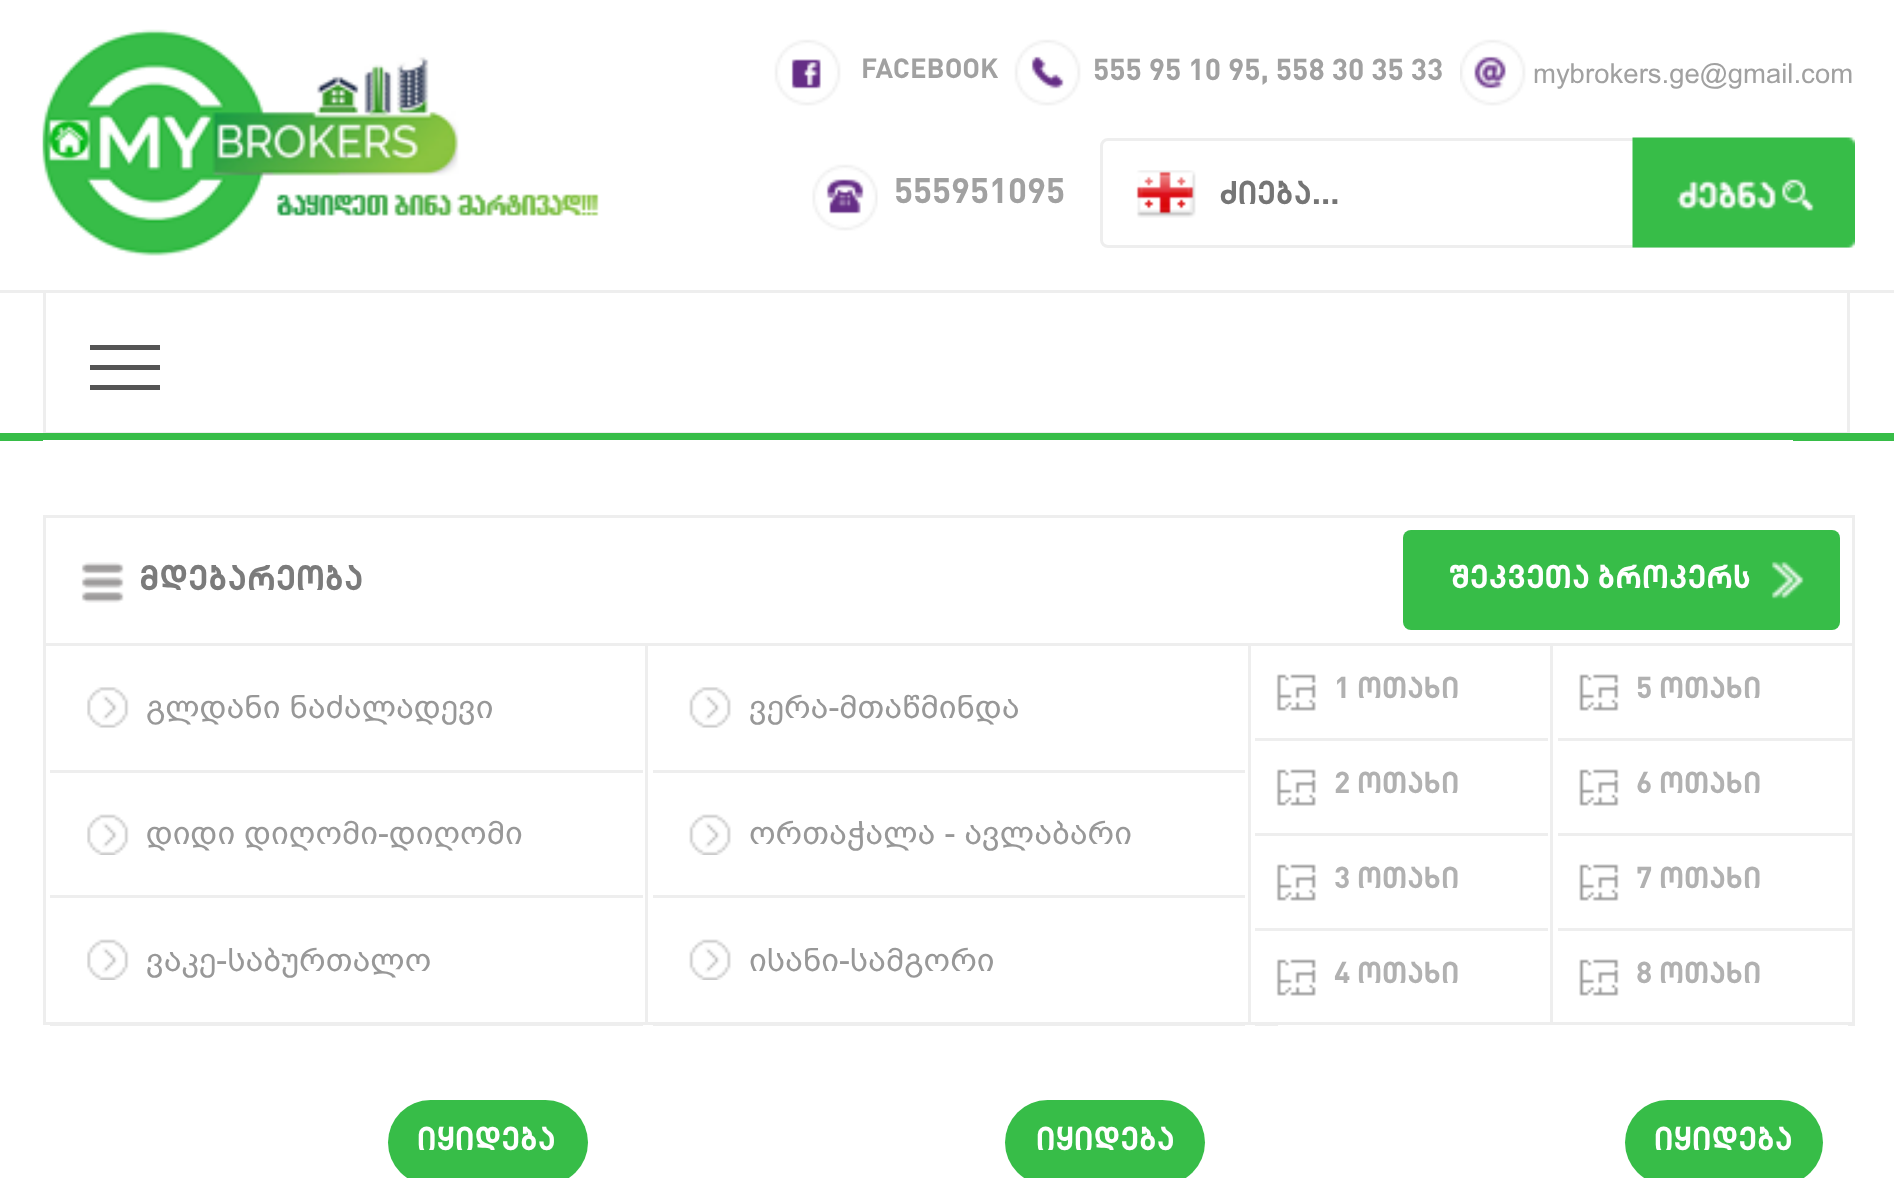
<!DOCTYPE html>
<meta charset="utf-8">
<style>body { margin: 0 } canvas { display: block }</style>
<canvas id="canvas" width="1894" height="1178"></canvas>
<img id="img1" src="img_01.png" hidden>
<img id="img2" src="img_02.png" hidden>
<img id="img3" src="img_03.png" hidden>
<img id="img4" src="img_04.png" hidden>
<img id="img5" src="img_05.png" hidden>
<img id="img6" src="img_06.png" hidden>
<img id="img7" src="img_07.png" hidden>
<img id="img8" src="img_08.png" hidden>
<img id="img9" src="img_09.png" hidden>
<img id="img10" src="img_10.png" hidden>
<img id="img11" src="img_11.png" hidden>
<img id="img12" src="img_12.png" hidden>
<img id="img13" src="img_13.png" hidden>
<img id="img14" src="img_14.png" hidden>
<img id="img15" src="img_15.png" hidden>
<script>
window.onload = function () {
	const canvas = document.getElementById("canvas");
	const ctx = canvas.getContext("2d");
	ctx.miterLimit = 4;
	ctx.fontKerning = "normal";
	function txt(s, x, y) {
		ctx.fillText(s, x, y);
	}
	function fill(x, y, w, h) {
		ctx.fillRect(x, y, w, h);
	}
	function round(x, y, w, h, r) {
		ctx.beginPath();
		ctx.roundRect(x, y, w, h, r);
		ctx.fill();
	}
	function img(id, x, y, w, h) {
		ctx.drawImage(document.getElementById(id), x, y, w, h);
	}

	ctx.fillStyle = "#FFFFFF";
	fill(0, 0, 1894, 1178);
	ctx.fillStyle = "#EEEEEE";
	fill(0, 290, 1894, 3);
	img("img1", 42, 29, 557, 227);
	img("img2", 774, 39, 67, 67);
	img("img3", 1014, 39, 67, 67);
	img("img4", 1460, 39, 66, 67);
	img("img5", 812, 164, 66, 67);
	ctx.beginPath();
	ctx.roundRect(1101.5, 139.5, 752, 107, 6.5);
	ctx.strokeStyle = "#EEEEEE";
	ctx.lineWidth = 3;
	ctx.stroke();
	img("img6", 1136, 170, 60, 48);
	img("img7", 1632, 137, 223, 111);
	ctx.fillStyle = "#37BD48";
	fill(0, 433, 1894, 8);
	ctx.save();
	ctx.beginPath();
	ctx.rect(43, 293, 1812, 140);
	ctx.clip();
	ctx.strokeRect(44.5, 291.5, 1804, 142);
	ctx.restore();
	ctx.fillStyle = "#555555";
	fill(90, 345, 70, 5);
	fill(90, 365, 70, 5);
	fill(90, 385, 70, 5);
	ctx.fillStyle = "#FFFFFF";
	fill(43, 440, 1750, 1);
	ctx.strokeRect(44.5, 516.5, 1809, 507);
	ctx.fillStyle = "#EEEEEE";
	fill(45, 643, 1808, 3);
	img("img8", 81, 562, 43, 41);
	ctx.fillStyle = "#37BD48";
	round(1403, 530, 437, 100, 8);
	img("img9", 1771, 561, 33, 38);
	ctx.fillStyle = "#EEEEEE";
	fill(50, 770, 593, 3);
	img("img10", 87, 687, 42, 41);
	fill(50, 895, 593, 3);
	img("img11", 87, 814, 42, 41);
	fill(50, 1025, 593, 1);
	img("img11", 87, 939, 42, 41);
	fill(1248, 645, 3, 380);
	fill(645, 645, 3, 380);
	fill(653, 770, 592, 3);
	img("img12", 689, 687, 42, 41);
	fill(653, 895, 592, 3);
	img("img13", 689, 814, 42, 41);
	fill(653, 1025, 592, 1);
	img("img13", 689, 939, 42, 41);
	fill(1255, 738, 293, 3);
	img("img14", 1276, 674, 40, 37);
	fill(1255, 833, 293, 3);
	img("img14", 1276, 769, 40, 37);
	fill(1255, 928, 293, 3);
	img("img14", 1276, 864, 40, 37);
	fill(1255, 1025, 293, 1);
	img("img14", 1276, 959, 40, 37);
	fill(1550, 645, 3, 380);
	fill(1558, 738, 297, 3);
	img("img15", 1579, 674, 40, 37);
	fill(1558, 833, 297, 3);
	img("img15", 1579, 769, 40, 37);
	fill(1558, 928, 297, 3);
	img("img15", 1579, 864, 40, 37);
	fill(1558, 1025, 297, 1);
	img("img15", 1579, 959, 40, 37);
	ctx.fillStyle = "#37BD48";
	round(388, 1100, 200, 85, 42.5);
	round(1005, 1100, 200, 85, 42.5);
	ctx.fillStyle = "#FFFFFF";
	fill(1278, 1025, 570, 1);
	ctx.fillStyle = "#37BD48";
	round(1625, 1100, 198, 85, 42.5);
	ctx.font = "bold 27.5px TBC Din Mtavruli";
	ctx.fillStyle = "#A1A1A1";
	txt("FACEBOOK", 861, 78);
	ctx.font = "bold 30px TBC Din Mtavruli";
	txt("555 95 10 95, 558 30 35 33", 1093, 80);
	ctx.font = "27.5px 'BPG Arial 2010'";
	txt("mybrokers.ge@gmail.com", 1533, 83);
	ctx.font = "bold 35px TBC Din Mtavruli";
	txt("555951095", 894, 203);
	ctx.font = "bold 32.5px TBC Din Mtavruli";
	ctx.fillStyle = "#757575";
	txt("ძიება...", 1219, 204);
	ctx.font = "bold 35px TBC Din Mtavruli";
	ctx.fillStyle = "#7B7B7B";
	txt("მდებარეობა", 139, 590);
	ctx.font = "bold 32.5px TBC Din Mtavruli";
	ctx.fillStyle = "#FFFFFF";
	txt("შეკვეთა ბროკერს", 1451, 588);
	ctx.font = "32.5px 'BPG Arial 2010'";
	ctx.fillStyle = "#989898";
	txt("გლდანი ნაძალადევი", 146, 718);
	txt("დიდი დიღომი-დიღომი", 146, 844);
	txt("ვაკე-საბურთალო", 146, 971);
	txt("ვერა-მთაწმინდა", 749, 718);
	txt("ორთაჭალა - ავლაბარი", 749, 844);
	txt("ისანი-სამგორი", 749, 971);
	ctx.font = "bold 30px TBC Din Mtavruli";
	ctx.fillStyle = "#B1B1B1";
	txt("1 ოთახი", 1334, 698);
	txt("2 ოთახი", 1334, 793);
	txt("3 ოთახი", 1334, 888);
	txt("4 ოთახი", 1334, 983);
	txt("5 ოთახი", 1636, 698);
	txt("6 ოთახი", 1636, 793);
	txt("7 ოთახი", 1636, 888);
	txt("8 ოთახი", 1636, 983);
	ctx.font = "bold 32.5px TBC Din Mtavruli";
	ctx.fillStyle = "#FFFFFF";
	txt("იყიდება", 417, 1150);
	txt("იყიდება", 1036, 1150);
	txt("იყიდება", 1654, 1150);
};
</script>
